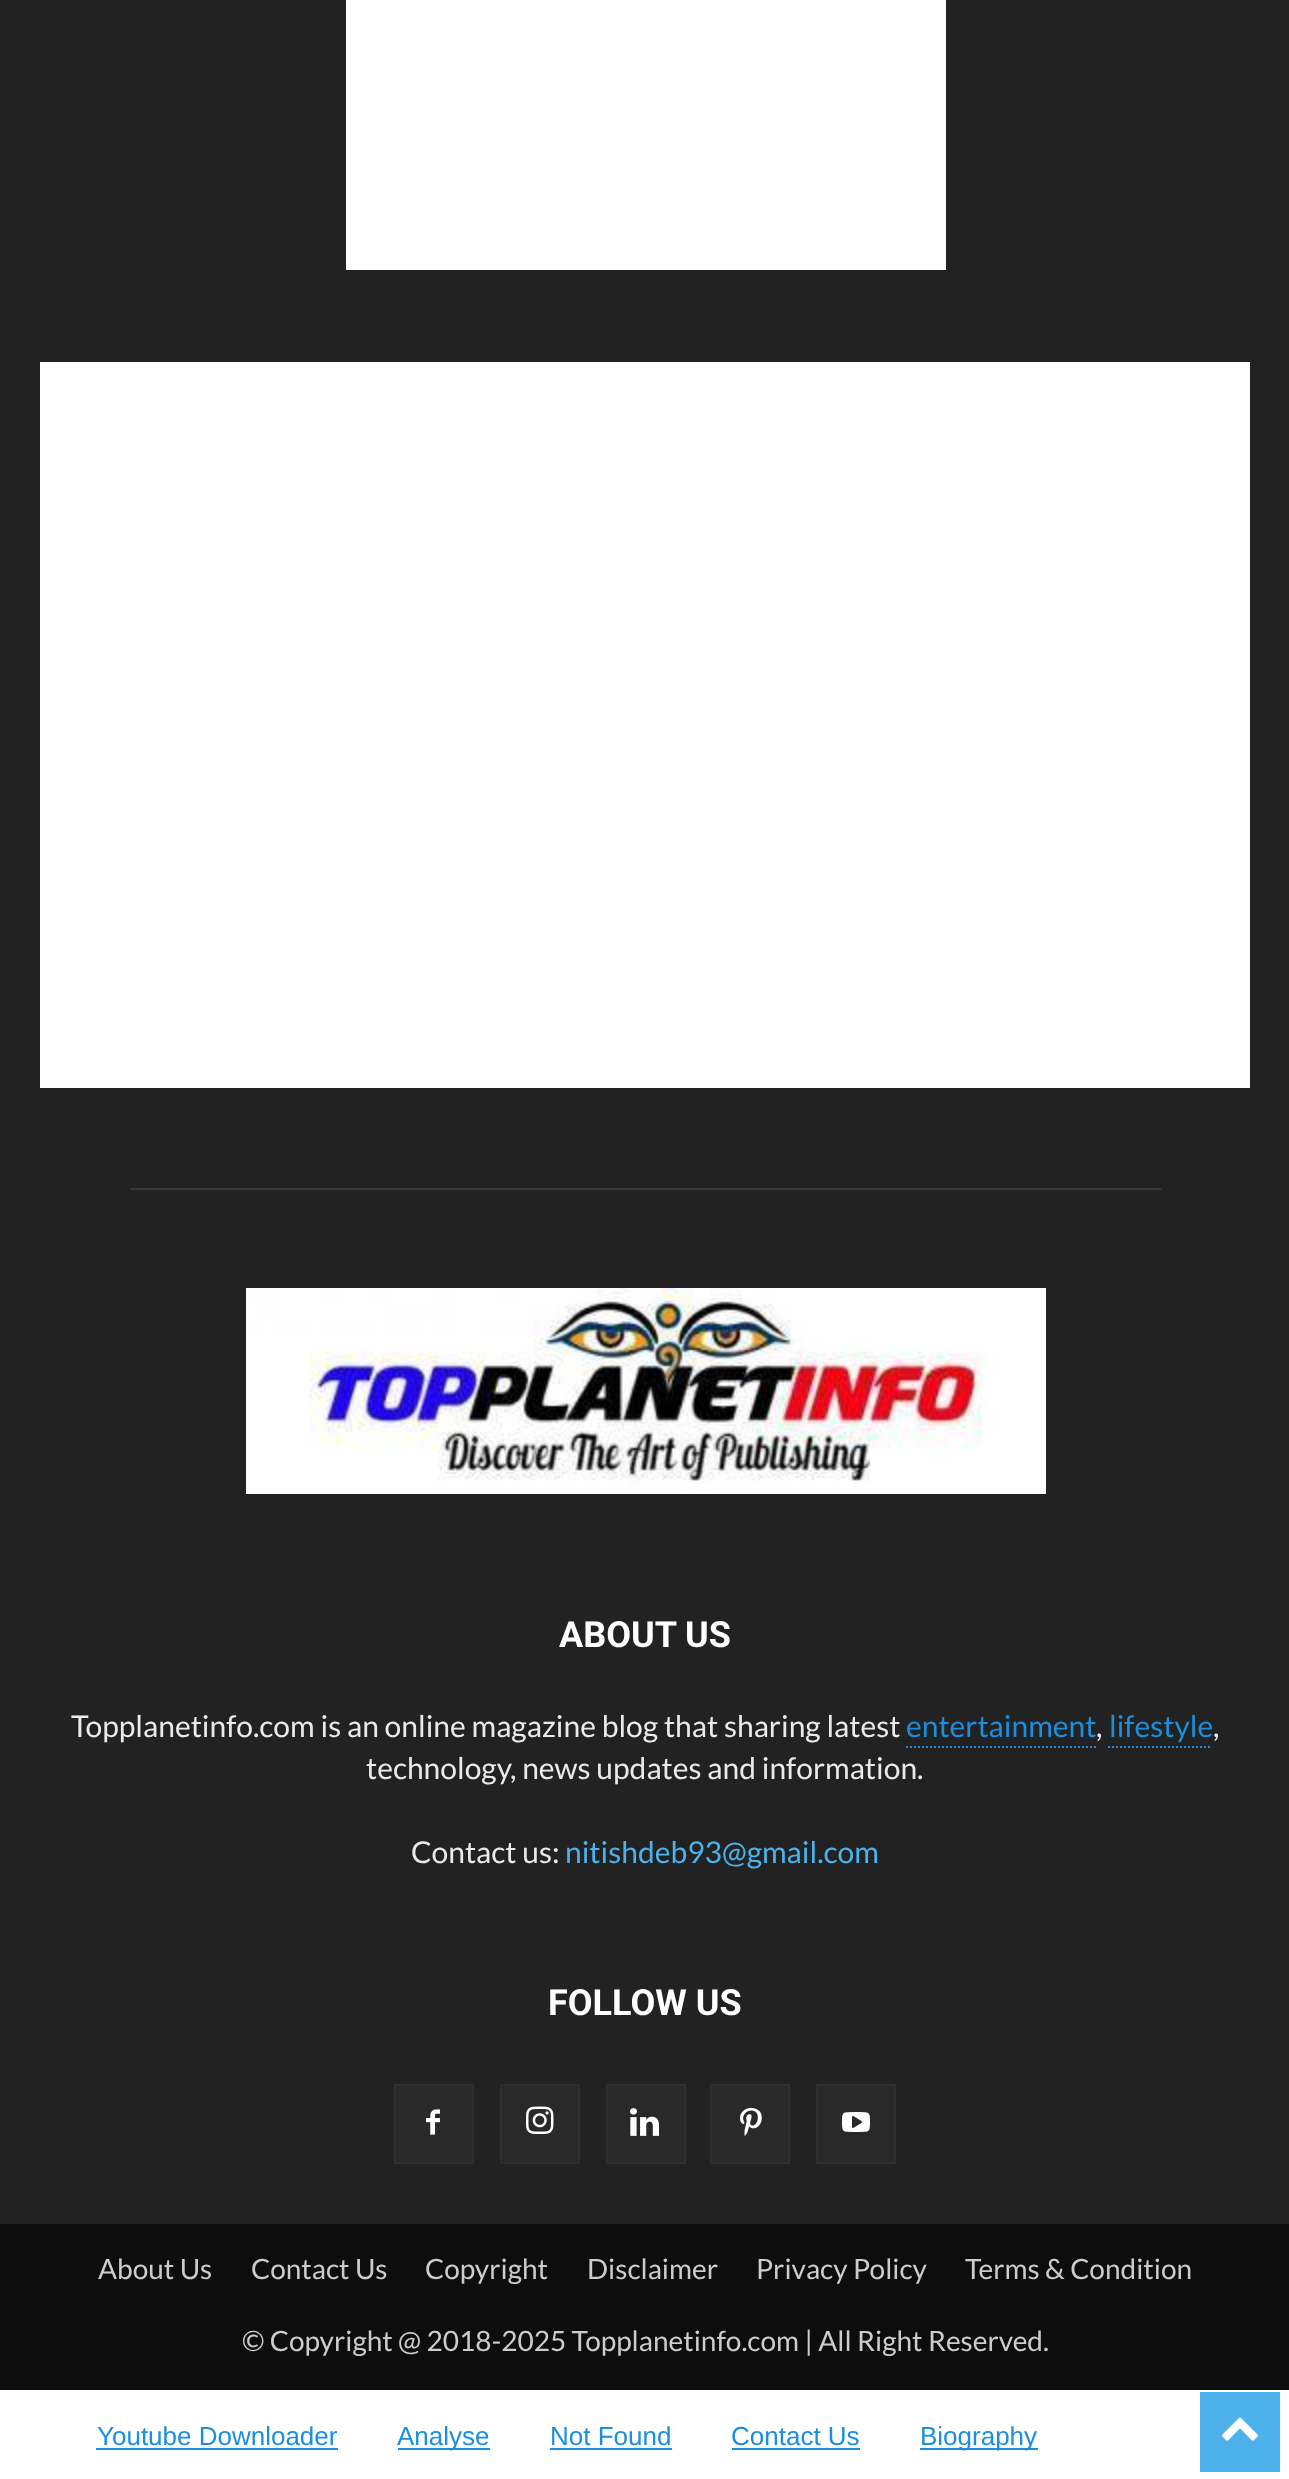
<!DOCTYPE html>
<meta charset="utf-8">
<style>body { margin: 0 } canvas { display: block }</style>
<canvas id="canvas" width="1289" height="2479"></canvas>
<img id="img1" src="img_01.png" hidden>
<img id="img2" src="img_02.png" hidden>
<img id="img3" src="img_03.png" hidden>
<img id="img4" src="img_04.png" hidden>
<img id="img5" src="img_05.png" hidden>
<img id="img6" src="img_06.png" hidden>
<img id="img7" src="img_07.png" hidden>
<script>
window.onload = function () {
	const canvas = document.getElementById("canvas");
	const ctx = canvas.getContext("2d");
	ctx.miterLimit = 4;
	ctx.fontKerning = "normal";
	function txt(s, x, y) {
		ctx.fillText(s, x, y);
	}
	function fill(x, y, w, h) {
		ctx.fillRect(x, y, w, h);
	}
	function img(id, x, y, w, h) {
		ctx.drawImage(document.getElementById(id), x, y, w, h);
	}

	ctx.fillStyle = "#FFFFFF";
	fill(0, 0, 1289, 2479);
	ctx.fillStyle = "#222222";
	fill(0, 0, 1289, 2224);
	ctx.fillStyle = "#FFFFFF";
	fill(346, 0, 600, 270);
	fill(40, 362, 1210, 726);
	ctx.fillStyle = "#383838";
	fill(130, 1188, 1032, 2);
	img("img1", 246, 1288, 800, 206);
	ctx.beginPath();
	ctx.moveTo(906, 1747);
	ctx.lineTo(1096, 1747);
	ctx.strokeStyle = "#1B8EDE";
	ctx.lineWidth = 2;
	ctx.setLineDash([2, 2]);
	ctx.stroke();
	ctx.beginPath();
	ctx.moveTo(1108, 1747);
	ctx.lineTo(1212, 1747);
	ctx.stroke();
	ctx.fillStyle = "#292929";
	fill(396, 2086, 76, 76);
	img("img2", 426, 2109, 14, 26);
	ctx.strokeStyle = "#2F2F2F";
	ctx.setLineDash([]);
	ctx.strokeRect(395, 2085, 78, 78);
	fill(502, 2086, 76, 76);
	img("img3", 526, 2106, 28, 28);
	ctx.strokeRect(501, 2085, 78, 78);
	fill(608, 2086, 76, 76);
	img("img4", 630, 2108, 29, 28);
	ctx.strokeRect(607, 2085, 78, 78);
	fill(712, 2086, 76, 76);
	img("img5", 740, 2108, 22, 28);
	ctx.strokeRect(711, 2085, 78, 78);
	fill(818, 2086, 76, 76);
	img("img6", 842, 2112, 28, 20);
	ctx.strokeRect(817, 2085, 78, 78);
	ctx.fillStyle = "#0D0D0D";
	fill(0, 2224, 1289, 166);
	ctx.fillStyle = "#1B8EDE";
	fill(96, 2448, 242, 2);
	fill(398, 2448, 92, 2);
	fill(550, 2448, 122, 2);
	fill(732, 2448, 128, 2);
	fill(920, 2448, 118, 2);
	ctx.fillStyle = "#4DB2EC";
	fill(1200, 2392, 80, 80);
	img("img7", 1222, 2417, 36, 24);
	ctx.font = "bold 36px Roboto";
	ctx.fillStyle = "#FFFFFF";
	txt("ABOUT US", 559, 1647);
	ctx.font = "30px Lato";
	ctx.fillStyle = "#EAEAEA";
	txt("Topplanetinfo.com is an online magazine blog that sharing latest", 71, 1737);
	ctx.fillStyle = "#1B8EDE";
	txt("entertainment", 906, 1737);
	ctx.fillStyle = "#EAEAEA";
	txt(",", 1096, 1737);
	ctx.fillStyle = "#1B8EDE";
	txt("lifestyle", 1109, 1737);
	ctx.fillStyle = "#EAEAEA";
	txt(",", 1213, 1737);
	txt("technology, news updates and information.", 366, 1779);
	txt("Contact us:", 411, 1863);
	ctx.fillStyle = "#4DB2EC";
	txt("nitishdeb93@gmail.com", 565, 1863);
	ctx.font = "bold 36px Roboto";
	ctx.fillStyle = "#FFFFFF";
	txt("FOLLOW US", 548, 2015);
	ctx.font = "28px Lato";
	ctx.fillStyle = "#CCCCCC";
	txt("About Us", 98, 2279);
	txt("Contact Us", 251, 2279);
	txt("Copyright", 425, 2279);
	txt("Disclaimer", 587, 2279);
	txt("Privacy Policy", 756, 2279);
	txt("Terms & Condition", 965, 2279);
	txt("© Copyright @ 2018-2025 Topplanetinfo.com | All Right Reserved.", 242, 2351);
	ctx.font = "26px Liberation Sans";
	ctx.fillStyle = "#1B8EDE";
	txt("Youtube Downloader", 97, 2445);
	txt("Analyse", 397, 2445);
	txt("Not Found", 550, 2445);
	txt("Contact Us", 731, 2445);
	txt("Biography", 920, 2445);
};
</script>
